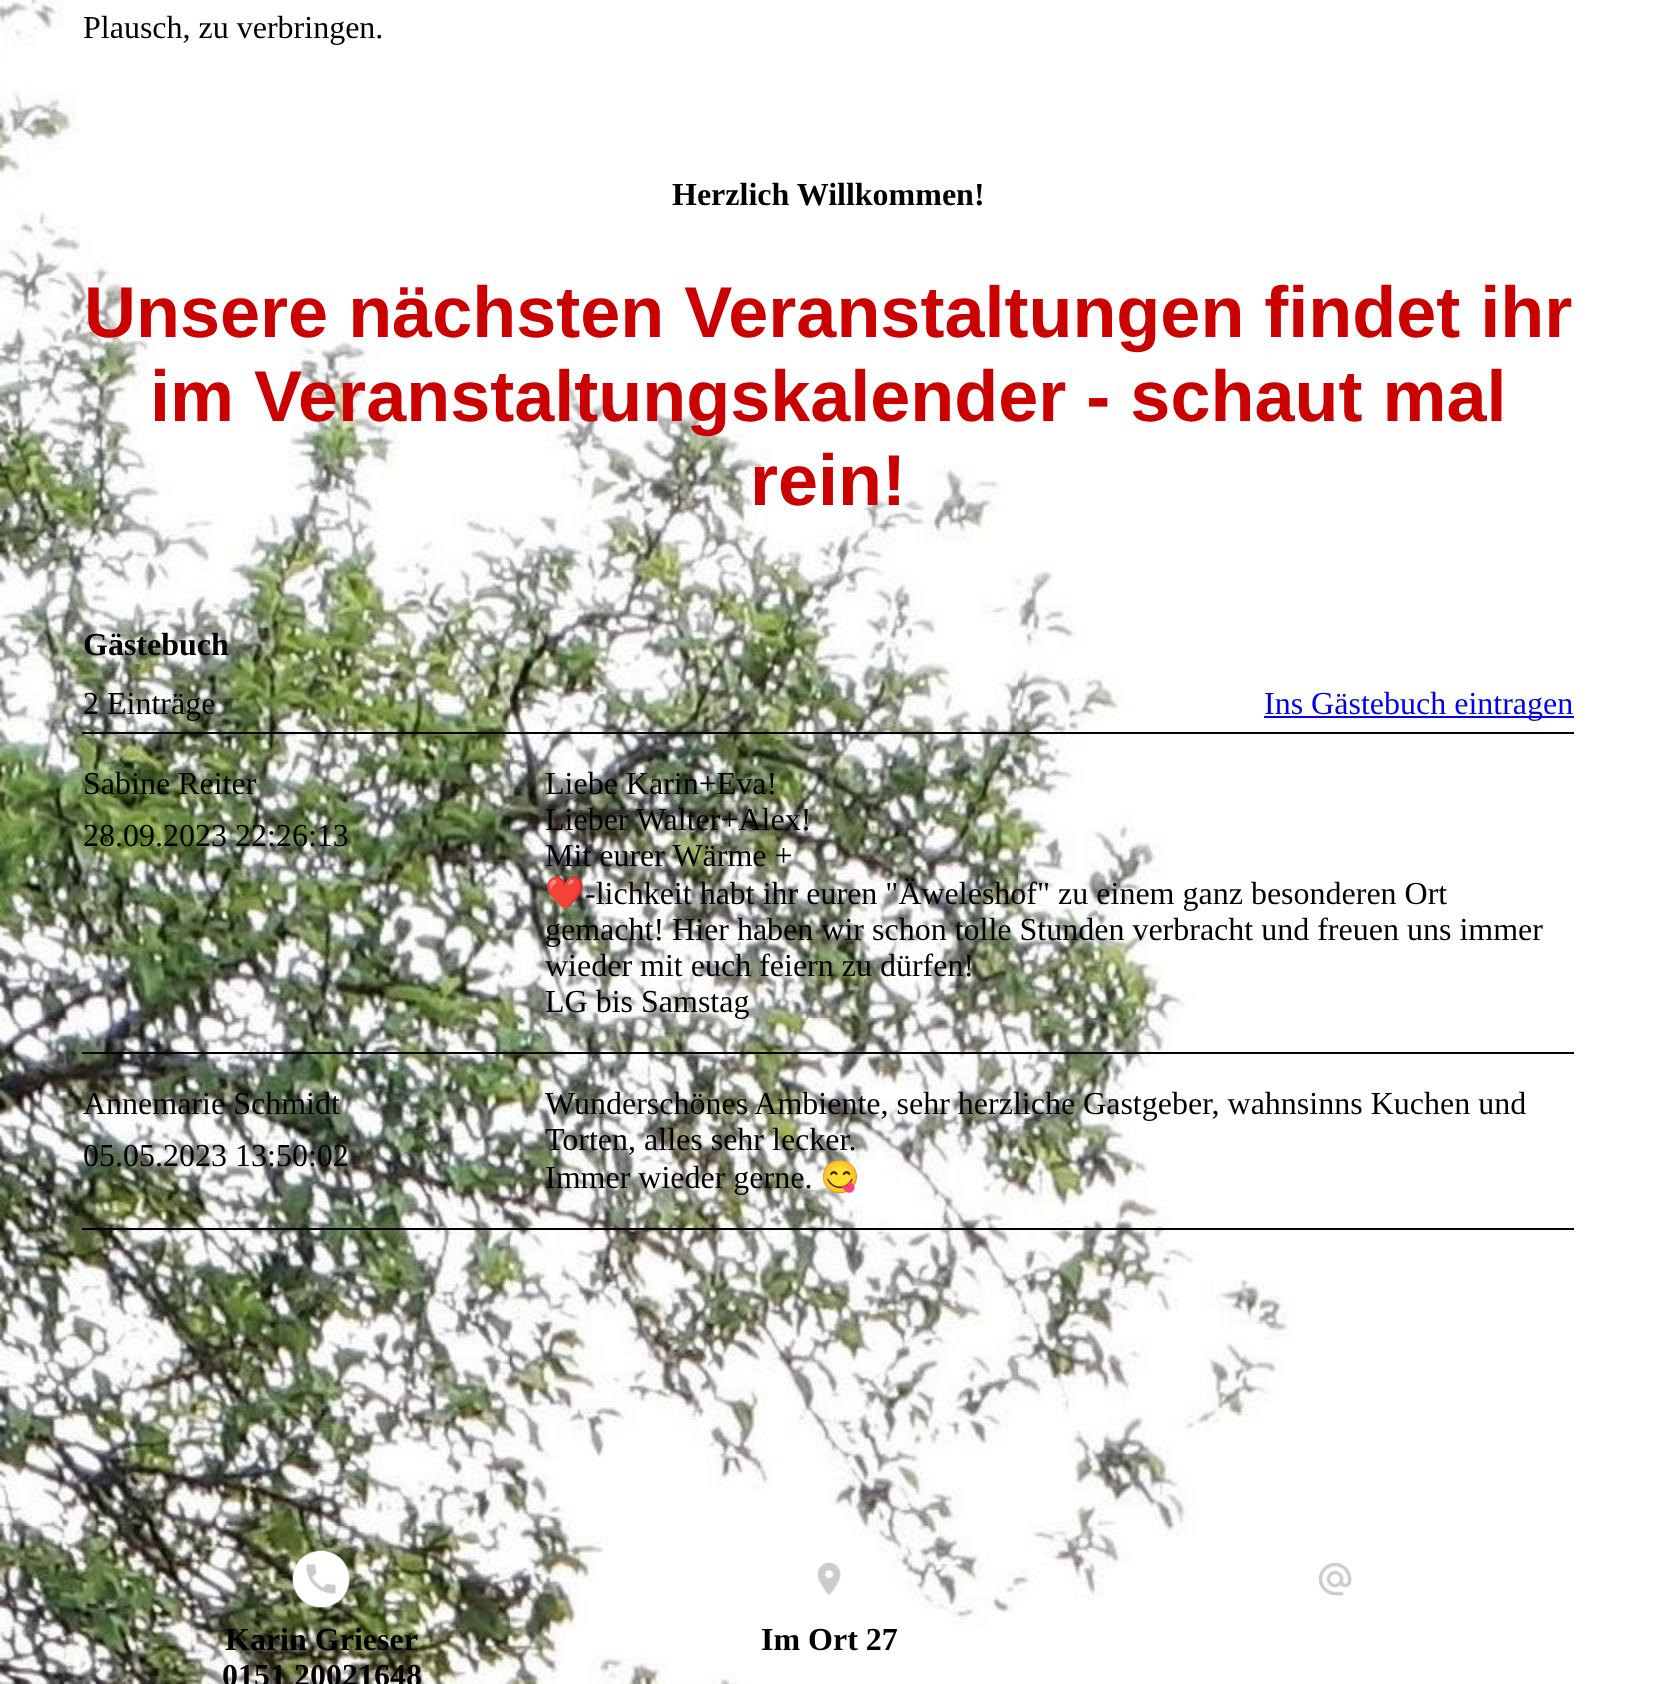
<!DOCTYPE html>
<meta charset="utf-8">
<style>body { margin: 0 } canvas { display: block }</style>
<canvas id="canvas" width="1655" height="1684"></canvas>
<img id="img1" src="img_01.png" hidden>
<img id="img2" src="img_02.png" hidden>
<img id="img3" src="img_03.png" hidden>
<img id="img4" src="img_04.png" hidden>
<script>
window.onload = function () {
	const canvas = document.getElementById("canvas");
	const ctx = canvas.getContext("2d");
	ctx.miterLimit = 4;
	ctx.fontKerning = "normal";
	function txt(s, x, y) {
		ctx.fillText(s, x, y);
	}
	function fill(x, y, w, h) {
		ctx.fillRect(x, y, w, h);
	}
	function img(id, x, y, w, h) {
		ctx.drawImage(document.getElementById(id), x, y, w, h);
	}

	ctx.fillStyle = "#FFFFFF";
	fill(0, 0, 1655, 1684);
	img("img1", 0, 0, 1293, 1684);
	ctx.fillStyle = "#0000EE";
	fill(1264, 716, 310, 2);
	ctx.fillStyle = "#000000";
	fill(82, 732, 1492, 2);
	fill(82, 1052, 1492, 2);
	fill(82, 1228, 1492, 2);
	img("img2", 1318, 1562, 34, 34);
	img("img3", 292, 1550, 58, 58);
	img("img4", 817, 1562, 24, 34);
	ctx.font = "32px Liberation Serif";
	txt("Plausch, zu verbringen.", 83, 38);
	ctx.font = "bold 32px Liberation Serif";
	txt("Herzlich Willkommen!", 672, 205);
	ctx.font = "bold 72px Liberation Sans";
	ctx.fillStyle = "#CB0000";
	txt("Unsere nächsten Veranstaltungen findet ihr", 84, 337);
	txt("im Veranstaltungskalender - schaut mal", 150, 421);
	txt("rein!", 750, 505);
	ctx.font = "bold 32px Liberation Serif";
	ctx.fillStyle = "#000000";
	txt("Gästebuch", 83, 655);
	ctx.font = "32px Liberation Serif";
	txt("2 Einträge", 83, 714);
	ctx.fillStyle = "#0000EE";
	txt("Ins Gästebuch eintragen", 1264, 714);
	ctx.fillStyle = "#000000";
	txt("Sabine Reiter", 83, 794);
	txt("28.09.2023 22:26:13", 83, 846);
	txt("Liebe Karin+Eva!", 545, 794);
	txt("Lieber Walter+Alex!", 545, 830);
	txt("Mit eurer Wärme +", 545, 866);
	ctx.font = "32px Noto Color Emoji";
	txt("❤️", 545, 904);
	ctx.font = "32px Liberation Serif";
	txt("-lichkeit habt ihr euren \"Äweleshof\" zu einem ganz besonderen Ort", 585, 904);
	txt("gemacht! Hier haben wir schon tolle Stunden verbracht und freuen uns immer", 545, 940);
	txt("wieder mit euch feiern zu dürfen!", 545, 976);
	txt("LG bis Samstag", 545, 1012);
	txt("Annemarie Schmidt", 83, 1114);
	txt("05.05.2023 13:50:02", 83, 1166);
	txt("Wunderschönes Ambiente, sehr herzliche Gastgeber, wahnsinns Kuchen und", 545, 1114);
	txt("Torten, alles sehr lecker.", 545, 1150);
	txt("Immer wieder gerne.", 545, 1188);
	ctx.font = "32px Noto Color Emoji";
	txt("😋", 820, 1188);
	ctx.font = "bold 32px Liberation Serif";
	txt("Karin Grieser", 225, 1650);
	txt("0151 20021648", 222, 1686);
	txt("Im Ort 27", 761, 1650);
};
</script>
